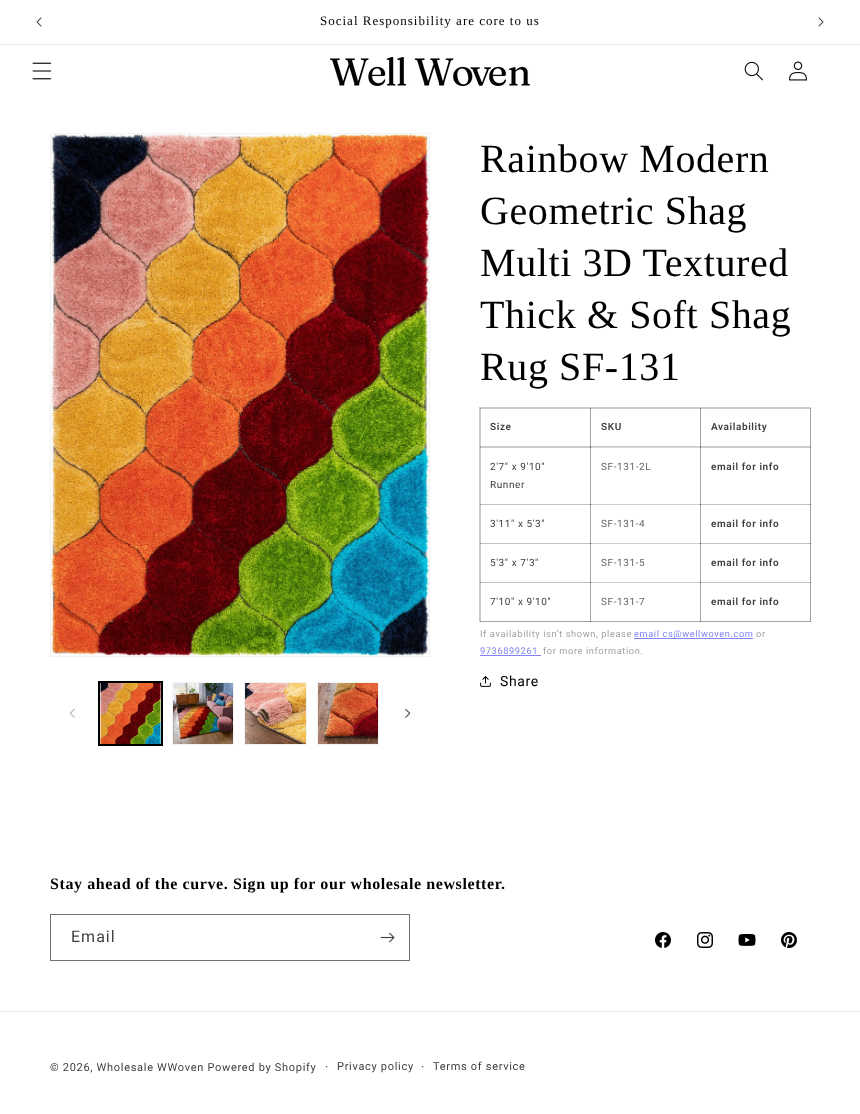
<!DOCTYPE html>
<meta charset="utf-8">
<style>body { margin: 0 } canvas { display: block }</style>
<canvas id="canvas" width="860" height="1114"></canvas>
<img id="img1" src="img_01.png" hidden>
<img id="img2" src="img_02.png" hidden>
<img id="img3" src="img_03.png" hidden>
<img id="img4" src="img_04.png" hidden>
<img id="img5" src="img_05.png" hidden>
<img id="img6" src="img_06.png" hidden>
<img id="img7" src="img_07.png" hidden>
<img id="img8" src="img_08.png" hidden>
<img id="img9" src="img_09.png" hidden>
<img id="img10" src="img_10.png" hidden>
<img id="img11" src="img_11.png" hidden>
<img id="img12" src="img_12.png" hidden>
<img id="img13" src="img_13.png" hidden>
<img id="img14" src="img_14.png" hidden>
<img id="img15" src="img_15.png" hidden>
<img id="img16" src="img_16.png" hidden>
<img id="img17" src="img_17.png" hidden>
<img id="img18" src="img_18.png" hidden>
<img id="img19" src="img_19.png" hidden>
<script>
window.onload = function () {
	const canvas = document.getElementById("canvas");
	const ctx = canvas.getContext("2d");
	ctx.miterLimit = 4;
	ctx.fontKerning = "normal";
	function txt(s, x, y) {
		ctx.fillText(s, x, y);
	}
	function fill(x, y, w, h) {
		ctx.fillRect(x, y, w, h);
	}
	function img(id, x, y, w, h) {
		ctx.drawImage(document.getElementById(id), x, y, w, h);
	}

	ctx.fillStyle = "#FFFFFF";
	fill(0, 0, 860, 1114);
	ctx.fillStyle = "#EBEBEB";
	fill(0, 44, 860, 1);
	img("img1", 36, 17, 6, 10);
	img("img2", 818, 17, 6, 10);
	img("img3", 32, 62, 20, 18);
	img("img4", 330, 57, 200, 29);
	img("img5", 744, 61, 19, 20);
	img("img6", 789, 61, 18, 20);
	ctx.strokeStyle = "#F2F2F2";
	ctx.strokeRect(50.5, 133.5, 379, 523);
	img("img7", 51, 134, 378, 522);
	img("img8", 69, 708, 6, 10);
	ctx.strokeStyle = "#000000";
	ctx.strokeRect(98.5, 681.5, 64, 64);
	ctx.strokeRect(99.5, 682.5, 62, 62);
	img("img9", 100, 683, 61, 61);
	ctx.strokeStyle = "#F2F2F2";
	ctx.strokeRect(172.5, 682.5, 61, 62);
	img("img10", 173, 683, 60, 61);
	ctx.strokeRect(244.5, 682.5, 62, 62);
	img("img11", 245, 683, 61, 61);
	ctx.strokeRect(317.5, 682.5, 61, 62);
	img("img12", 318, 683, 60, 61);
	img("img13", 405, 708, 6, 10);
	ctx.strokeStyle = "#CCCCCC";
	ctx.strokeRect(479.5, 407.5, 331, 214);
	ctx.fillStyle = "rgba(0, 0, 0, 0.2)";
	fill(700, 408, 111, 1);
	fill(810, 408, 1, 39);
	fill(700, 446, 111, 1);
	fill(700, 408, 1, 39);
	fill(590, 408, 111, 1);
	fill(700, 408, 1, 39);
	fill(590, 446, 111, 1);
	fill(590, 408, 1, 39);
	fill(480, 408, 111, 1);
	fill(590, 408, 1, 39);
	fill(480, 446, 111, 1);
	fill(480, 408, 1, 39);
	fill(700, 447, 111, 1);
	fill(700, 504, 111, 1);
	fill(700, 543, 111, 1);
	fill(700, 582, 111, 1);
	fill(810, 582, 1, 40);
	fill(810, 543, 1, 40);
	fill(810, 504, 1, 40);
	fill(810, 447, 1, 58);
	fill(700, 621, 111, 1);
	fill(700, 582, 1, 40);
	ctx.fillStyle = "rgba(0, 0, 0, 0.16)";
	fill(590, 582, 111, 1);
	fill(700, 582, 1, 40);
	ctx.fillStyle = "rgba(0, 0, 0, 0.04)";
	fill(700, 582, 111, 1);
	ctx.fillStyle = "rgba(0, 0, 0, 0.2)";
	fill(700, 543, 1, 40);
	ctx.fillStyle = "rgba(0, 0, 0, 0.16)";
	fill(590, 543, 111, 1);
	fill(700, 543, 1, 40);
	ctx.fillStyle = "rgba(0, 0, 0, 0.04)";
	fill(700, 543, 111, 1);
	ctx.fillStyle = "rgba(0, 0, 0, 0.2)";
	fill(700, 504, 1, 40);
	ctx.fillStyle = "rgba(0, 0, 0, 0.16)";
	fill(590, 504, 111, 1);
	fill(700, 504, 1, 40);
	ctx.fillStyle = "rgba(0, 0, 0, 0.04)";
	fill(700, 504, 111, 1);
	ctx.fillStyle = "rgba(0, 0, 0, 0.2)";
	fill(700, 447, 1, 58);
	ctx.fillStyle = "rgba(0, 0, 0, 0.16)";
	fill(590, 447, 111, 1);
	fill(700, 447, 1, 58);
	fill(590, 621, 111, 1);
	fill(590, 582, 1, 40);
	ctx.fillStyle = "rgba(0, 0, 0, 0.2)";
	fill(480, 582, 111, 1);
	fill(590, 582, 1, 40);
	ctx.fillStyle = "rgba(0, 0, 0, 0.03)";
	fill(590, 582, 111, 1);
	ctx.fillStyle = "rgba(0, 0, 0, 0.16)";
	fill(590, 543, 1, 40);
	ctx.fillStyle = "rgba(0, 0, 0, 0.2)";
	fill(480, 543, 111, 1);
	fill(590, 543, 1, 40);
	ctx.fillStyle = "rgba(0, 0, 0, 0.03)";
	fill(590, 543, 111, 1);
	ctx.fillStyle = "rgba(0, 0, 0, 0.16)";
	fill(590, 504, 1, 40);
	ctx.fillStyle = "rgba(0, 0, 0, 0.2)";
	fill(480, 504, 111, 1);
	fill(590, 504, 1, 40);
	ctx.fillStyle = "rgba(0, 0, 0, 0.03)";
	fill(590, 504, 111, 1);
	ctx.fillStyle = "rgba(0, 0, 0, 0.16)";
	fill(590, 447, 1, 58);
	ctx.fillStyle = "rgba(0, 0, 0, 0.2)";
	fill(480, 447, 111, 1);
	fill(590, 447, 1, 58);
	fill(480, 621, 111, 1);
	fill(480, 582, 1, 40);
	ctx.fillStyle = "rgba(0, 0, 0, 0.04)";
	fill(480, 582, 111, 1);
	ctx.fillStyle = "rgba(0, 0, 0, 0.2)";
	fill(480, 543, 1, 40);
	ctx.fillStyle = "rgba(0, 0, 0, 0.04)";
	fill(480, 543, 111, 1);
	ctx.fillStyle = "rgba(0, 0, 0, 0.2)";
	fill(480, 504, 1, 40);
	ctx.fillStyle = "rgba(0, 0, 0, 0.04)";
	fill(480, 504, 111, 1);
	ctx.fillStyle = "rgba(0, 0, 0, 0.2)";
	fill(480, 447, 1, 58);
	ctx.fillStyle = "#8282F7";
	fill(634, 638, 119, 1);
	fill(480, 655, 61, 1);
	img("img14", 480, 676, 11, 11);
	ctx.strokeStyle = "#737373";
	ctx.strokeRect(50.5, 914.5, 359, 46);
	img("img15", 380, 932, 15, 11);
	img("img16", 655, 932, 16, 16);
	img("img17", 697, 932, 16, 16);
	img("img18", 738, 934, 18, 12);
	img("img19", 781, 932, 16, 16);
	ctx.fillStyle = "#EBEBEB";
	fill(0, 1011, 860, 1);
	ctx.letterSpacing = "1px";
	ctx.font = "13px Liberation Serif";
	ctx.fillStyle = "#000000";
	txt("Social Responsibility are core to us", 320, 25);
	ctx.letterSpacing = "0.6px";
	ctx.font = "40px Liberation Serif";
	txt("Rainbow Modern", 480, 172);
	txt("Geometric Shag", 480, 224);
	txt("Multi 3D Textured", 480, 276);
	txt("Thick & Soft Shag", 480, 328);
	txt("Rug SF-131", 480, 380);
	ctx.font = "600 10px Roboto";
	ctx.fillStyle = "#404040";
	txt("Size", 490, 430);
	txt("SKU", 601, 430);
	txt("Availability", 711, 430);
	ctx.font = "10px Roboto";
	txt("2'7\" x 9'10\"", 490, 470);
	txt("Runner", 490, 488);
	ctx.fillStyle = "#666666";
	txt("SF-131-2L", 601, 470);
	ctx.font = "600 10px Roboto";
	ctx.fillStyle = "#404040";
	txt("email for info", 711, 470);
	ctx.font = "10px Roboto";
	txt("3'11\" x 5'3\"", 490, 527);
	ctx.fillStyle = "#666666";
	txt("SF-131-4", 601, 527);
	ctx.font = "600 10px Roboto";
	ctx.fillStyle = "#404040";
	txt("email for info", 711, 527);
	ctx.font = "10px Roboto";
	txt("5'3\" x 7'3\"", 490, 566);
	ctx.fillStyle = "#666666";
	txt("SF-131-5", 601, 566);
	ctx.font = "600 10px Roboto";
	ctx.fillStyle = "#404040";
	txt("email for info", 711, 566);
	ctx.font = "10px Roboto";
	txt("7'10\" x 9'10\"", 490, 605);
	ctx.fillStyle = "#666666";
	txt("SF-131-7", 601, 605);
	ctx.font = "600 10px Roboto";
	ctx.fillStyle = "#404040";
	txt("email for info", 711, 605);
	ctx.font = "9.25px Roboto";
	ctx.fillStyle = "#A1A1A1";
	txt("If availability isn’t shown, please", 480, 637);
	ctx.fillStyle = "#8282F7";
	txt("email cs@wellwoven.com", 634, 637);
	ctx.fillStyle = "#A1A1A1";
	txt("or", 756, 637);
	ctx.fillStyle = "#8282F7";
	txt("9736899261", 480, 654);
	ctx.fillStyle = "#A1A1A1";
	txt("for more information.", 543, 654);
	ctx.font = "14px Roboto";
	ctx.fillStyle = "#000000";
	txt("Share", 500, 686);
	ctx.font = "bold 16px Liberation Serif";
	txt("Stay ahead of the curve. Sign up for our wholesale newsletter.", 50, 889);
	ctx.letterSpacing = "1px";
	ctx.font = "16px Roboto";
	ctx.fillStyle = "#404040";
	txt("Email", 71, 942);
	ctx.letterSpacing = "0.7px";
	ctx.font = "11px Roboto";
	txt("© 2026, Wholesale WWoven Powered by Shopify", 50, 1071);
	ctx.font = "12px Roboto";
	txt("·", 325, 1071);
	ctx.font = "11px Roboto";
	txt("Privacy policy", 337, 1070);
	ctx.font = "12px Roboto";
	txt("·", 421, 1071);
	ctx.font = "11px Roboto";
	txt("Terms of service", 433, 1070);
};
</script>
